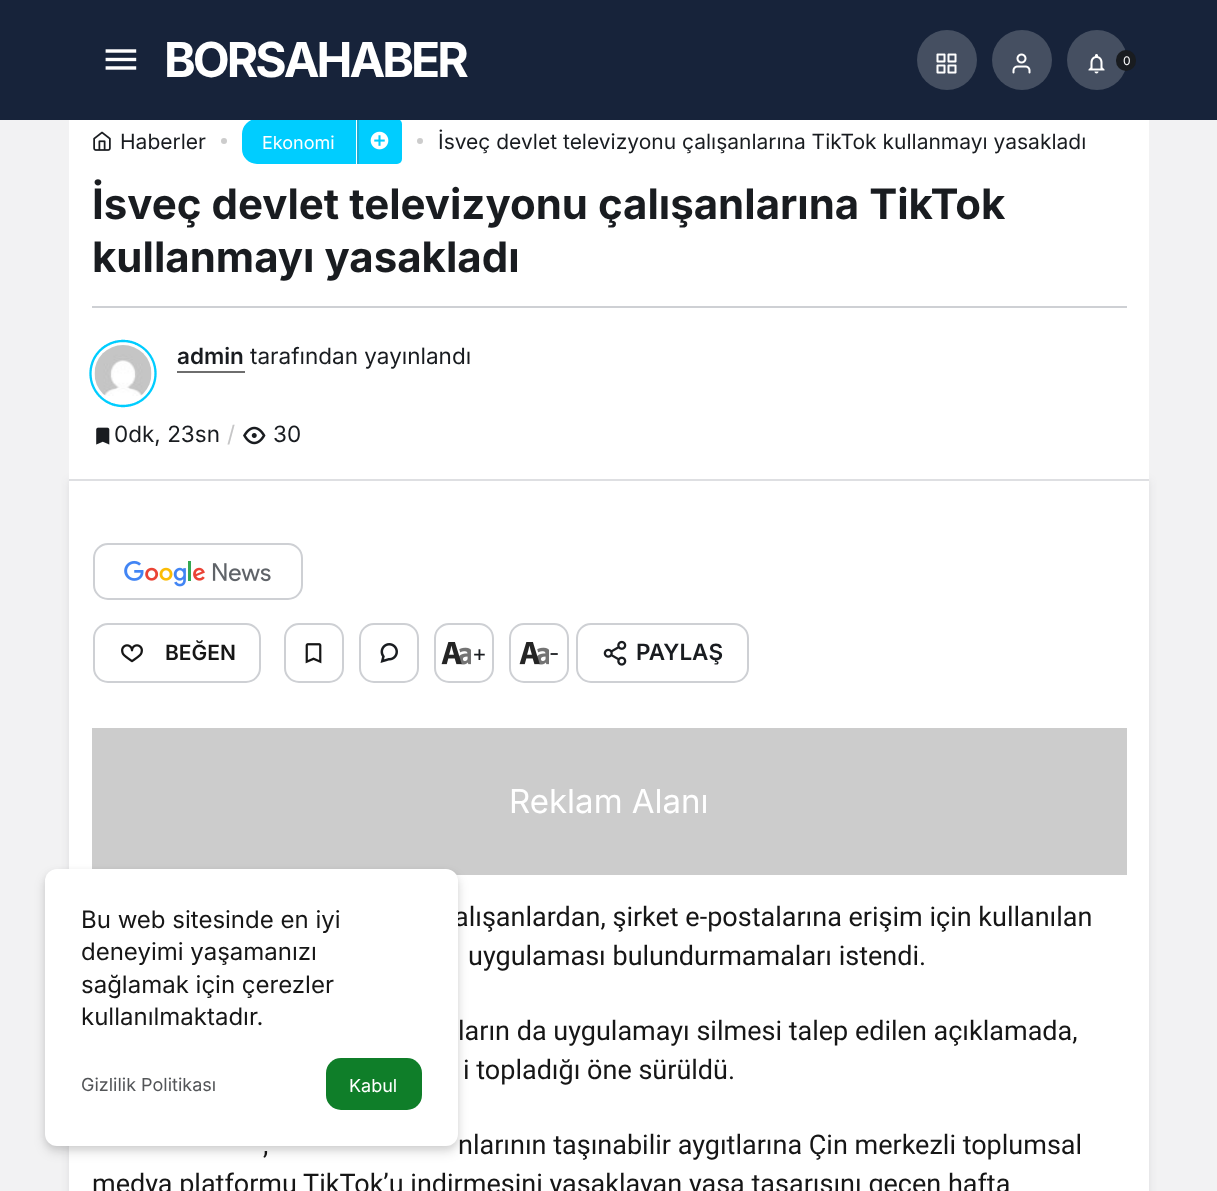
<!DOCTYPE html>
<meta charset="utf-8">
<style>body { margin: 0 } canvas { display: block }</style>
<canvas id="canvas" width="1217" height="1191"></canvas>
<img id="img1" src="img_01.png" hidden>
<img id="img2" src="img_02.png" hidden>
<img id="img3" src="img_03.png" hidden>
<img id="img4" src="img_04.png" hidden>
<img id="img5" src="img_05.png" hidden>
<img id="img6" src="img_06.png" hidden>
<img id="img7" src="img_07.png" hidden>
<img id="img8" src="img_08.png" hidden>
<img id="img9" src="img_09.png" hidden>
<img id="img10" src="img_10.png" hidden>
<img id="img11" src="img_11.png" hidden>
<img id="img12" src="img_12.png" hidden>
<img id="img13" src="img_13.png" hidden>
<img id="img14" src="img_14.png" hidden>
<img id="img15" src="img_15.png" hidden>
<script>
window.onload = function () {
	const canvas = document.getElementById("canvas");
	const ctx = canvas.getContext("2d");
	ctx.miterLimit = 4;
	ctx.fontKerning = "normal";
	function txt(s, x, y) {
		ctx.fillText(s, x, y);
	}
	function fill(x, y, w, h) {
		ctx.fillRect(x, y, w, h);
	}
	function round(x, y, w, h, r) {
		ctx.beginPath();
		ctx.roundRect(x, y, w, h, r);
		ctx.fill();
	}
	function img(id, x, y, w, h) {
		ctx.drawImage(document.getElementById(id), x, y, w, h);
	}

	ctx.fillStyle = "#F2F2F3";
	fill(0, 0, 1217, 1191);
	ctx.fillStyle = "rgba(50, 53, 61, 0.1)";
	ctx.filter = "blur(4px)";
	ctx.beginPath();
	ctx.rect(69, 480, 1080, 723);
	ctx.fill();
	ctx.filter = "none";
	ctx.fillStyle = "#FFFFFF";
	fill(69, 120, 1080, 359);
	ctx.fillStyle = "#00CDFF";
	ctx.beginPath();
	ctx.roundRect(243, 120, 112, 43, [14, 0, 0, 14]);
	ctx.fill();
	ctx.strokeStyle = "#00CDFF";
	ctx.lineWidth = 2;
	ctx.stroke();
	ctx.beginPath();
	ctx.roundRect(357, 119, 45, 45, [0, 5, 5, 0]);
	ctx.fill();
	ctx.fillStyle = "#1BADD4";
	fill(357, 119, 2, 45);
	ctx.fillStyle = "#17233A";
	fill(0, 0, 1217, 120);
	img("img1", 105, 49, 32, 21);
	ctx.fillStyle = "#454F61";
	ctx.beginPath();
	ctx.arc(947, 60, 30, 0, Math.PI * 2);
	ctx.fill();
	img("img2", 936, 53, 21, 21);
	ctx.beginPath();
	ctx.arc(1022, 60, 30, 0, Math.PI * 2);
	ctx.fill();
	img("img3", 1012, 53, 19, 21);
	ctx.beginPath();
	ctx.arc(1097, 60, 30, 0, Math.PI * 2);
	ctx.fill();
	img("img4", 1088, 54, 17, 20);
	ctx.fillStyle = "#191C20";
	round(1116, 50, 20, 21, 10);
	ctx.fillStyle = "#DEDFE2";
	fill(69, 479, 1080, 2);
	img("img5", 93, 131, 18, 20);
	ctx.fillStyle = "#CCCCCC";
	ctx.beginPath();
	ctx.arc(224, 141, 3, 0, Math.PI * 2);
	ctx.fill();
	img("img6", 370, 131, 19, 19);
	ctx.beginPath();
	ctx.arc(420, 141, 3, 0, Math.PI * 2);
	ctx.fill();
	ctx.fillStyle = "#CED0D4";
	fill(92, 306, 1035, 2);
	img("img7", 94, 345, 58, 51);
	ctx.beginPath();
	ctx.moveTo(123, 341);
	ctx.bezierCurveTo(141, 341, 155.5, 355.5, 155.5, 373.5);
	ctx.bezierCurveTo(155.5, 391.5, 141, 406, 123, 406);
	ctx.bezierCurveTo(105, 406, 90.5, 391.5, 90.5, 373.5);
	ctx.bezierCurveTo(90.5, 355.5, 105, 341, 123, 341);
	ctx.closePath();
	ctx.lineWidth = 2.4;
	ctx.lineCap = "round";
	ctx.setLineDash([0.81, 0.81]);
	ctx.stroke();
	ctx.fillStyle = "#6E6E6E";
	fill(177, 371, 68, 2);
	img("img8", 96, 427, 14, 18);
	img("img9", 243, 426, 23, 19);
	ctx.fillStyle = "#FFFFFF";
	fill(69, 481, 1080, 710);
	img("img10", 124, 560, 147, 27);
	ctx.beginPath();
	ctx.roundRect(94, 544, 208, 55, 14);
	ctx.strokeStyle = "#CED0D4";
	ctx.lineWidth = 2;
	ctx.setLineDash([]);
	ctx.stroke();
	ctx.beginPath();
	ctx.roundRect(94, 624, 166, 58, 14);
	ctx.stroke();
	img("img11", 121, 644, 22, 19);
	ctx.beginPath();
	ctx.roundRect(285, 624, 58, 58, 14);
	ctx.stroke();
	img("img12", 305, 643, 17, 21);
	ctx.beginPath();
	ctx.roundRect(360, 624, 58, 58, 14);
	ctx.stroke();
	img("img13", 380, 643, 18, 20);
	ctx.beginPath();
	ctx.roundRect(435, 624, 58, 58, 14);
	ctx.stroke();
	img("img14", 441, 642, 30, 23);
	ctx.beginPath();
	ctx.roundRect(510, 624, 58, 58, 14);
	ctx.stroke();
	img("img14", 519, 642, 30, 23);
	ctx.beginPath();
	ctx.roundRect(577, 624, 171, 58, 14);
	ctx.stroke();
	img("img15", 603, 640, 24, 26);
	ctx.fillStyle = "#CCCCCC";
	fill(92, 728, 1035, 147);
	ctx.fillStyle = "rgba(0, 0, 0, 0.08)";
	ctx.filter = "blur(3px)";
	ctx.beginPath();
	ctx.roundRect(45, 872, 413, 277, 12);
	ctx.fill();
	ctx.filter = "none";
	ctx.fillStyle = "rgba(0, 0, 0, 0.12)";
	ctx.filter = "blur(6px)";
	ctx.beginPath();
	ctx.roundRect(45, 875, 413, 277, 12);
	ctx.fill();
	ctx.filter = "none";
	ctx.letterSpacing = "-3px";
	ctx.font = "bold 48px Inter";
	ctx.fillStyle = "#FFFFFF";
	txt("BORSAHABER", 164, 77);
	ctx.letterSpacing = "0px";
	ctx.font = "12px Inter";
	txt("0", 1123, 65);
	ctx.font = "21px Inter";
	ctx.fillStyle = "#191C20";
	txt("Haberler", 120, 149);
	ctx.font = "18px Inter";
	ctx.fillStyle = "#FFFFFF";
	txt("Ekonomi", 262, 149);
	ctx.font = "21px Inter";
	ctx.fillStyle = "#191C20";
	txt("İsveç devlet televizyonu çalışanlarına TikTok kullanmayı yasakladı", 438, 149);
	ctx.font = "bold 42px Inter";
	txt("İsveç devlet televizyonu çalışanlarına TikTok", 92, 219);
	txt("kullanmayı yasakladı", 92, 272);
	ctx.font = "600 22.5px Inter";
	txt("admin", 177, 364);
	ctx.font = "22.5px Inter";
	txt("tarafından yayınlandı", 250, 364);
	txt("0dk, 23sn", 114, 442);
	ctx.fillStyle = "#C6C6C7";
	txt("/", 227, 442);
	ctx.fillStyle = "#191C20";
	txt("30", 273, 442);
	ctx.font = "600 21px Inter";
	ctx.fillStyle = "#161616";
	txt("BEĞEN", 165, 660);
	ctx.font = "22.5px Inter";
	ctx.fillStyle = "#191C20";
	txt("+", 472, 661);
	txt("-", 549, 661);
	ctx.font = "600 22.5px Inter";
	txt("PAYLAŞ", 636, 660);
	ctx.font = "33px Inter";
	ctx.fillStyle = "#FFFFFF";
	txt("Reklam Alanı", 509, 813);
	ctx.font = "27px Roboto";
	ctx.fillStyle = "#161616";
	txt("alışanlardan, şirket e-postalarına erişim için kullanılan", 454, 926);
	txt("uygulaması bulundurmamaları istendi.", 468, 965);
	txt("ların da uygulamayı silmesi talep edilen açıklamada,", 458, 1040);
	txt("i topladığı öne sürüldü.", 463, 1079);
	txt(",", 263, 1154);
	txt("nlarının taşınabilir aygıtlarına Çin merkezli toplumsal", 458, 1154);
	txt("medya platformu TikTok’u indirmesini yasaklayan yasa tasarısını geçen hafta", 92, 1193);
	ctx.fillStyle = "#FFFFFF";
	round(45, 869, 413, 277, 12);
	ctx.font = "24px Inter";
	ctx.fillStyle = "#161616";
	txt("Bu web sitesinde en iyi", 81, 928);
	txt("deneyimi yaşamanızı", 81, 960);
	txt("sağlamak için çerezler", 81, 993);
	txt("kullanılmaktadır.", 81, 1025);
	ctx.font = "18px Inter";
	ctx.fillStyle = "#535558";
	txt("Gizlilik Politikası", 81, 1091);
	ctx.fillStyle = "#0F7E29";
	round(326, 1058, 96, 52, 15);
	ctx.fillStyle = "#FFFFFF";
	txt("Kabul", 349, 1092);
};
</script>
